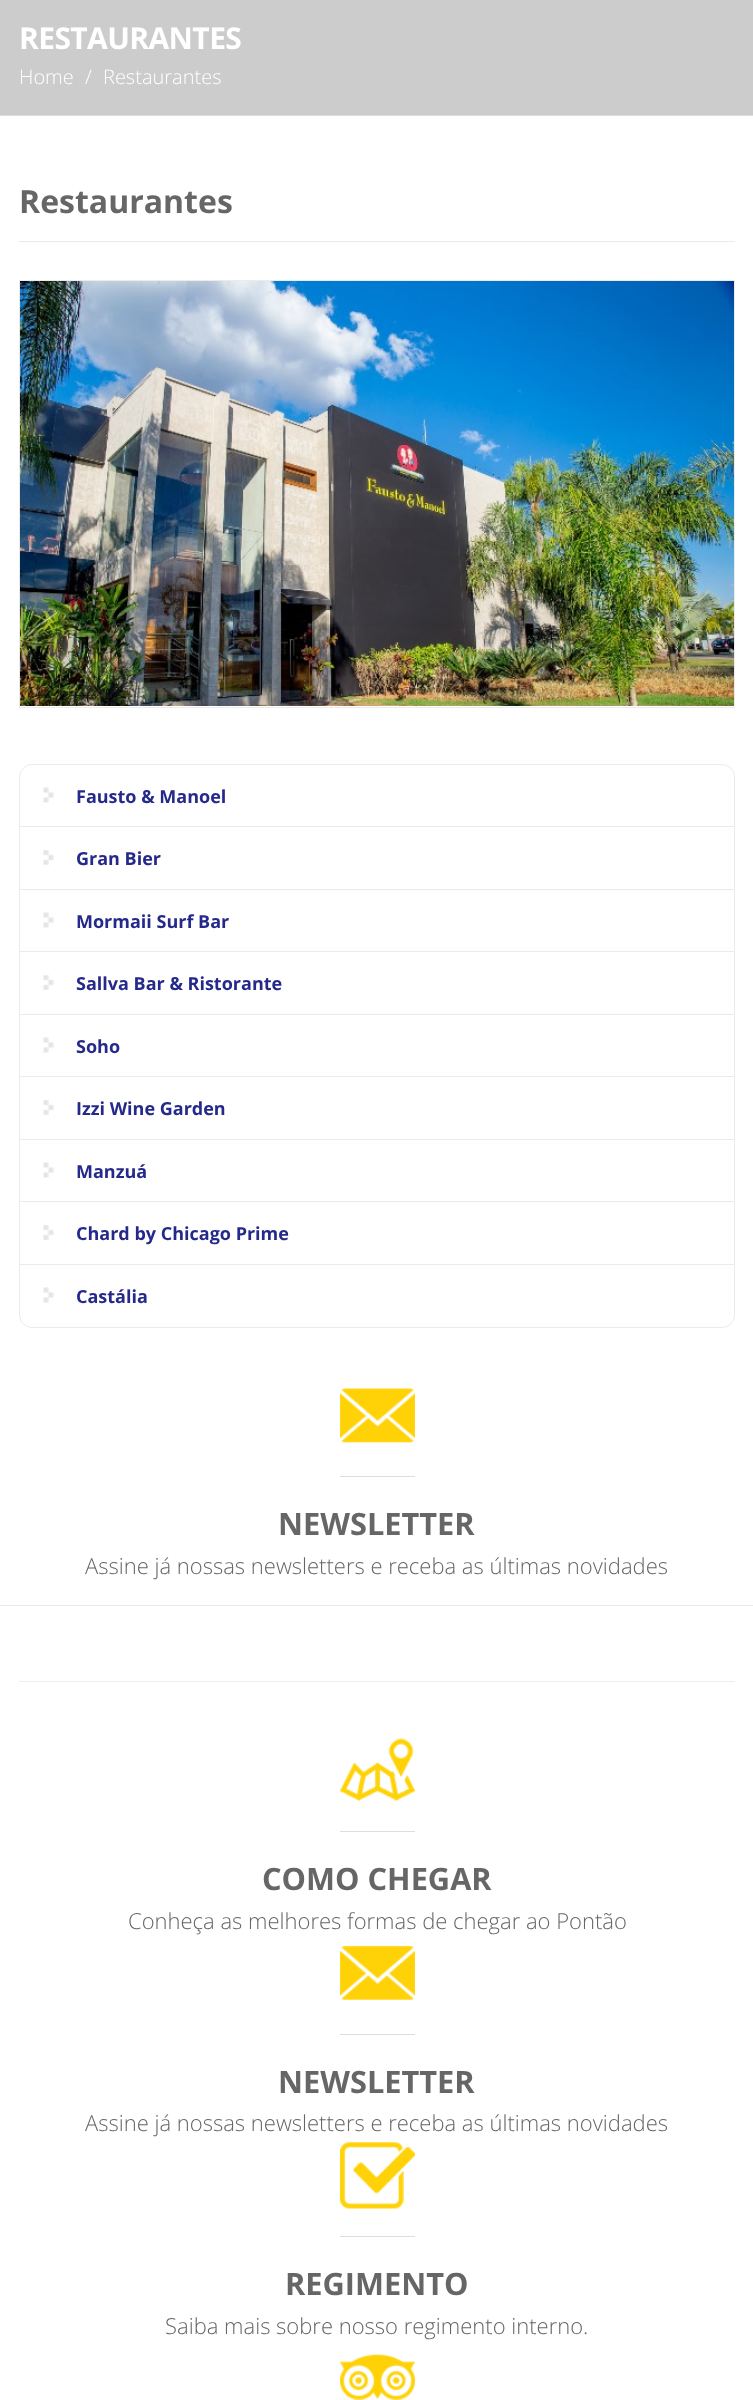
<!DOCTYPE html>
<meta charset="utf-8">
<style>body { margin: 0 } canvas { display: block }</style>
<canvas id="canvas" width="753" height="2400"></canvas>
<img id="img1" src="img_01.png" hidden>
<img id="img2" src="img_02.png" hidden>
<img id="img3" src="img_03.png" hidden>
<img id="img4" src="img_04.png" hidden>
<img id="img5" src="img_05.png" hidden>
<img id="img6" src="img_06.png" hidden>
<img id="img7" src="img_07.png" hidden>
<img id="img8" src="img_08.png" hidden>
<script>
window.onload = function () {
	const canvas = document.getElementById("canvas");
	const ctx = canvas.getContext("2d");
	ctx.miterLimit = 4;
	ctx.fontKerning = "normal";
	function txt(s, x, y) {
		ctx.fillText(s, x, y);
	}
	function fill(x, y, w, h) {
		ctx.fillRect(x, y, w, h);
	}
	function img(id, x, y, w, h) {
		ctx.drawImage(document.getElementById(id), x, y, w, h);
	}

	ctx.fillStyle = "#FFFFFF";
	fill(0, 0, 753, 2400);
	ctx.fillStyle = "#CCCCCC";
	fill(0, 0, 753, 115);
	ctx.fillStyle = "#DDDDDD";
	fill(0, 115, 753, 1);
	ctx.fillStyle = "#EBEBEB";
	fill(0, 1605, 753, 1);
	fill(19, 241, 716, 1);
	ctx.strokeStyle = "#EBEBEB";
	ctx.strokeRect(19.5, 280.5, 715, 427);
	img("img1", 20, 281, 714, 425);
	ctx.beginPath();
	ctx.roundRect(19.5, 764.5, 715, 563, 12.5);
	ctx.stroke();
	img("img2", 43, 787, 11, 16);
	fill(20, 826, 714, 1);
	img("img3", 43, 850, 11, 15);
	fill(20, 889, 714, 1);
	img("img2", 43, 912, 11, 16);
	fill(20, 951, 714, 1);
	img("img3", 43, 975, 11, 15);
	fill(20, 1014, 714, 1);
	img("img2", 43, 1037, 11, 16);
	fill(20, 1076, 714, 1);
	img("img3", 43, 1100, 11, 15);
	fill(20, 1139, 714, 1);
	img("img2", 43, 1162, 11, 16);
	fill(20, 1201, 714, 1);
	img("img3", 43, 1225, 11, 15);
	fill(20, 1264, 714, 1);
	img("img2", 43, 1287, 11, 16);
	img("img4", 340, 1388, 75, 55);
	ctx.fillStyle = "#DDDDDD";
	fill(340, 1476, 75, 1);
	ctx.fillStyle = "#EEEEEE";
	fill(19, 1681, 716, 1);
	img("img5", 340, 1738, 75, 64);
	ctx.fillStyle = "#DDDDDD";
	fill(340, 1831, 75, 1);
	img("img6", 340, 1945, 75, 55);
	fill(340, 2034, 75, 1);
	img("img7", 340, 2142, 75, 67);
	fill(340, 2236, 75, 1);
	img("img8", 340, 2354, 75, 46);
	ctx.letterSpacing = "-0.6px";
	ctx.font = "bold 30px Open Sans";
	ctx.fillStyle = "#FFFFFF";
	txt("RESTAURANTES", 19, 49);
	ctx.letterSpacing = "0px";
	ctx.font = "300 20px Open Sans";
	txt("Home", 19, 84);
	txt("/", 85, 84);
	txt("Restaurantes", 103, 84);
	ctx.font = "bold 32px Open Sans";
	ctx.fillStyle = "#666666";
	txt("Restaurantes", 19, 213);
	ctx.font = "bold 18px Open Sans";
	ctx.fillStyle = "#25298A";
	txt("Fausto & Manoel", 76, 803);
	txt("Gran Bier", 76, 865);
	txt("Mormaii Surf Bar", 76, 928);
	txt("Sallva Bar & Ristorante", 76, 990);
	txt("Soho", 76, 1053);
	txt("Izzi Wine Garden", 76, 1115);
	txt("Manzuá", 76, 1178);
	txt("Chard by Chicago Prime", 76, 1240);
	txt("Castália", 76, 1303);
	ctx.font = "bold 30.75px Open Sans";
	ctx.fillStyle = "#666666";
	txt("NEWSLETTER", 278, 1535);
	ctx.font = "300 22px Open Sans";
	txt("Assine já nossas newsletters e receba as últimas novidades", 85, 1574);
	ctx.font = "bold 30.75px Open Sans";
	txt("COMO CHEGAR", 262, 1890);
	ctx.font = "300 22px Open Sans";
	txt("Conheça as melhores formas de chegar ao Pontão", 128, 1929);
	ctx.font = "bold 30.75px Open Sans";
	txt("NEWSLETTER", 278, 2093);
	ctx.font = "300 22px Open Sans";
	txt("Assine já nossas newsletters e receba as últimas novidades", 85, 2131);
	ctx.font = "bold 30.75px Open Sans";
	txt("REGIMENTO", 285, 2295);
	ctx.font = "300 22px Open Sans";
	txt("Saiba mais sobre nosso regimento interno.", 165, 2334);
};
</script>
